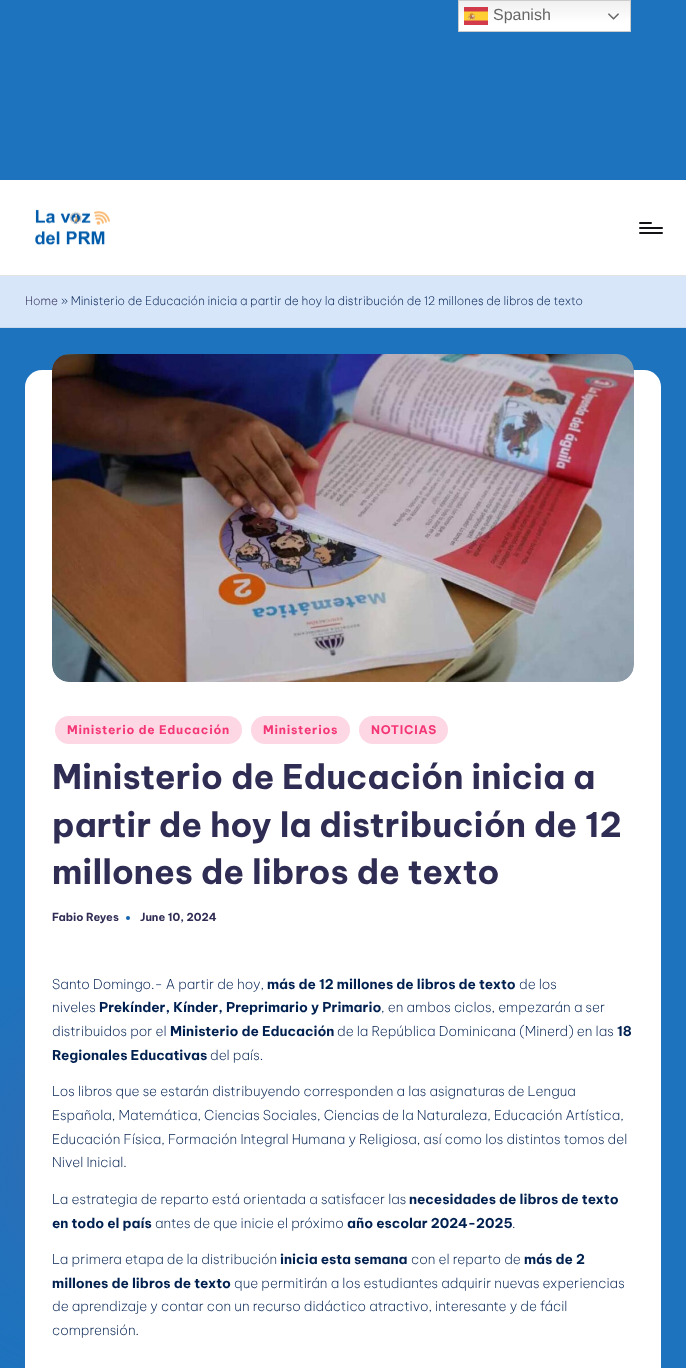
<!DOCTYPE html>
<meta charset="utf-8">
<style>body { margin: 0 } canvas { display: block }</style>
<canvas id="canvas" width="686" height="1368"></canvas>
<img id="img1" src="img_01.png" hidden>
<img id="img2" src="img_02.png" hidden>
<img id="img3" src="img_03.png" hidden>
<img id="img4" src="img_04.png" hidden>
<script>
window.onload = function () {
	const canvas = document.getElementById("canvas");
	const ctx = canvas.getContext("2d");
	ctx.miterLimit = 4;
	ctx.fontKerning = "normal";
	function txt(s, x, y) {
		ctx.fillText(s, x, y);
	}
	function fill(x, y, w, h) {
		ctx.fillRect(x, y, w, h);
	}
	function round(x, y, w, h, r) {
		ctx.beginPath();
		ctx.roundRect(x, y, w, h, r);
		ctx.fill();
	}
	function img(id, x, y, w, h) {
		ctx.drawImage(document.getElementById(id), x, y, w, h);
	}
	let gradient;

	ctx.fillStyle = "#1E73BE";
	fill(0, 0, 686, 1368);
	gradient = ctx.createLinearGradient(545, 0, 545, 32);
	gradient.addColorStop(0, "#EFEFEF");
	gradient.addColorStop(0.7, "#FFFFFF");
	ctx.fillStyle = gradient;
	fill(459, 1, 171, 30);
	ctx.strokeStyle = "#CCCCCC";
	ctx.strokeRect(458.5, 0.5, 172, 31);
	img("img1", 464, 7, 24, 18);
	img("img2", 608, 13, 11, 7);
	ctx.fillStyle = "#FFFFFF";
	fill(0, 180, 686, 95);
	ctx.fillStyle = "#E3E3E3";
	fill(0, 275, 686, 1);
	img("img3", 35, 209, 75, 37);
	ctx.fillStyle = "#131315";
	round(639, 227, 24, 2, 1);
	round(639, 222, 13, 2, 1);
	round(639, 232, 24, 2, 1);
	ctx.fillStyle = "#D8E6FA";
	fill(0, 276, 686, 51);
	ctx.fillStyle = "#CAD8EA";
	fill(0, 327, 686, 1);
	ctx.save();
	ctx.beginPath();
	ctx.rect(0, 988, 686, 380);
	ctx.clip();
	ctx.fillStyle = "#336BB1";
	ctx.filter = "blur(64px)";
	ctx.beginPath();
	ctx.roundRect(0, 1031, 244, 244, 122);
	ctx.fill();
	ctx.filter = "none";
	ctx.restore();
	ctx.fillStyle = "#FFFFFF";
	round(25, 370, 636, 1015, 17);
	img("img4", 52, 354, 582, 328);
	ctx.fillStyle = "#FDD7E4";
	round(55, 716, 187, 28, 14);
	round(251, 716, 99, 28, 14);
	round(359, 716, 89, 28, 14);
	ctx.fillStyle = "#1464AF";
	ctx.beginPath();
	ctx.arc(128, 918, 2, 0, Math.PI * 2);
	ctx.fill();
	ctx.font = "16px Liberation Sans";
	ctx.fillStyle = "#666666";
	txt("Spanish", 493, 20);
	ctx.font = "200 11.85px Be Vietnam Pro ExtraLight";
	ctx.fillStyle = "#302D55";
	txt("Home", 25, 305);
	ctx.fillStyle = "#002050";
	txt("» Ministerio de Educación inicia a partir de hoy la distribución de 12 millones de libros de texto", 61, 305);
	ctx.letterSpacing = "0.75px";
	ctx.font = "bold 12px Be Vietnam Pro";
	ctx.fillStyle = "#F43676";
	txt("Ministerio de Educación", 67, 734);
	txt("Ministerios", 263, 734);
	txt("NOTICIAS", 371, 734);
	ctx.letterSpacing = "0px";
	ctx.font = "bold 33.9px Be Vietnam Pro";
	ctx.fillStyle = "#302D55";
	txt("Ministerio de Educación inicia a", 52, 789);
	txt("partir de hoy la distribución de 12", 52, 837);
	txt("millones de libros de texto", 52, 884);
	ctx.font = "bold 11px Be Vietnam Pro";
	txt("Fabio Reyes", 52, 921);
	txt("June 10, 2024", 140, 921);
	ctx.font = "200 13.55px Be Vietnam Pro ExtraLight";
	ctx.fillStyle = "#002050";
	txt("Santo Domingo.- A partir de hoy,", 52, 989);
	ctx.font = "bold 13.55px Be Vietnam Pro";
	txt("más de 12 millones de libros de texto", 267, 989);
	ctx.font = "200 13.55px Be Vietnam Pro ExtraLight";
	txt("de los", 519, 989);
	txt("niveles", 52, 1012);
	ctx.font = "bold 13.55px Be Vietnam Pro";
	txt("Prekínder, Kínder, Preprimario y Primario", 99, 1012);
	ctx.font = "200 13.55px Be Vietnam Pro ExtraLight";
	txt(", en ambos ciclos, empezarán a ser", 381, 1012);
	txt("distribuidos por el", 52, 1036);
	ctx.font = "bold 13.55px Be Vietnam Pro";
	txt("Ministerio de Educación", 170, 1036);
	ctx.font = "200 13.55px Be Vietnam Pro ExtraLight";
	txt("de la República Dominicana (Minerd) en las", 337, 1036);
	ctx.font = "bold 13.55px Be Vietnam Pro";
	txt("18", 617, 1036);
	txt("Regionales Educativas", 52, 1060);
	ctx.font = "200 13.55px Be Vietnam Pro ExtraLight";
	txt("del país.", 210, 1060);
	txt("Los libros que se estarán distribuyendo corresponden a las asignaturas de Lengua", 52, 1096);
	txt("Española, Matemática, Ciencias Sociales, Ciencias de la Naturaleza, Educación Artística,", 52, 1120);
	txt("Educación Física, Formación Integral Humana y Religiosa, así como los distintos tomos del", 52, 1144);
	txt("Nivel Inicial.", 52, 1167);
	txt("La estrategia de reparto está orientada a satisfacer las", 52, 1204);
	ctx.font = "bold 13.55px Be Vietnam Pro";
	txt("necesidades de libros de texto", 409, 1204);
	txt("en todo el país", 52, 1228);
	ctx.font = "200 13.55px Be Vietnam Pro ExtraLight";
	txt("antes de que inicie el próximo", 155, 1228);
	ctx.font = "bold 13.55px Be Vietnam Pro";
	txt("año escolar 2024-2025", 347, 1228);
	ctx.font = "200 13.55px Be Vietnam Pro ExtraLight";
	txt(".", 512, 1228);
	txt("La primera etapa de la distribución", 52, 1264);
	ctx.font = "bold 13.55px Be Vietnam Pro";
	txt("inicia esta semana", 280, 1264);
	ctx.font = "200 13.55px Be Vietnam Pro ExtraLight";
	txt("con el reparto de", 411, 1264);
	ctx.font = "bold 13.55px Be Vietnam Pro";
	txt("más de 2", 524, 1264);
	txt("millones de libros de texto", 52, 1288);
	ctx.font = "200 13.55px Be Vietnam Pro ExtraLight";
	txt("que permitirán a los estudiantes adquirir nuevas experiencias", 234, 1288);
	txt("de aprendizaje y contar con un recurso didáctico atractivo, interesante y de fácil", 52, 1311);
	txt("comprensión.", 52, 1335);
};
</script>
